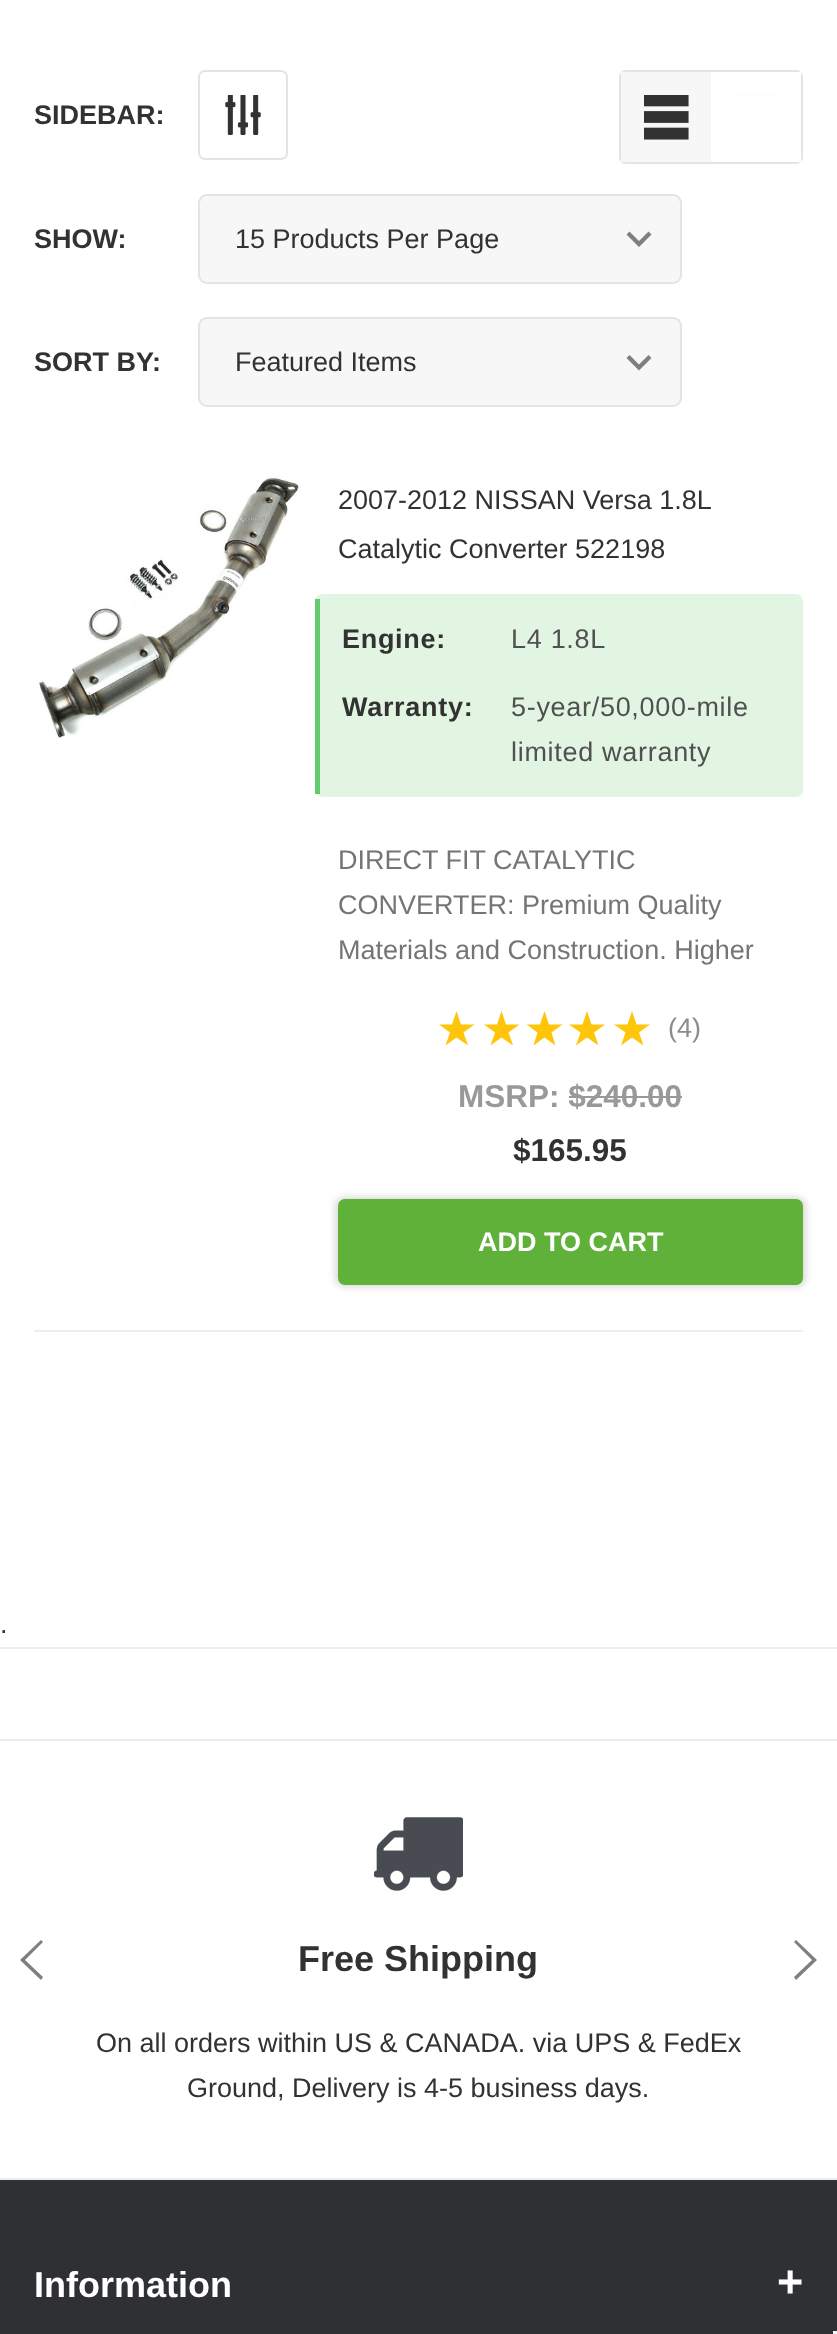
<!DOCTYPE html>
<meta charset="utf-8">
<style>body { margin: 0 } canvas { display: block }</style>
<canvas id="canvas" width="837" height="2334"></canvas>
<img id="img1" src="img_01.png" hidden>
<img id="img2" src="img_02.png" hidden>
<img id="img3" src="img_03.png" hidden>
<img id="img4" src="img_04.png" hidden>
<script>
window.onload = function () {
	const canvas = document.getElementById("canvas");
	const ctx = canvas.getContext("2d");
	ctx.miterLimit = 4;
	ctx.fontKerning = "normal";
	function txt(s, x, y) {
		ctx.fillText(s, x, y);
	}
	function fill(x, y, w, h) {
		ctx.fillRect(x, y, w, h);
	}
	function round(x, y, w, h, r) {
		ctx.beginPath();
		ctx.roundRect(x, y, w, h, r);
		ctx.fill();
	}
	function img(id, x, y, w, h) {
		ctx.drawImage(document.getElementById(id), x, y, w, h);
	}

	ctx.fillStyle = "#FFFFFF";
	fill(0, 0, 837, 2334);
	ctx.beginPath();
	ctx.roundRect(199, 71, 88, 88, 6);
	ctx.strokeStyle = "#E2E4E8";
	ctx.lineWidth = 2;
	ctx.stroke();
	img("img1", 225, 95, 36, 40);
	ctx.beginPath();
	ctx.roundRect(620, 71, 182, 92, 6);
	ctx.stroke();
	ctx.fillStyle = "#F7F7F7";
	fill(621, 72, 90, 90);
	img("img2", 644, 95, 45, 45);
	ctx.fillStyle = "#FFFFFF";
	fill(797, 72, 4, 90);
	ctx.fillStyle = "#FBFBFC";
	fill(734, 94, 44, 1);
	ctx.fillStyle = "#F7F7F7";
	round(198, 194, 484, 90, 9);
	ctx.fillStyle = "#7F7F7F";
	ctx.beginPath();
	ctx.moveTo(648.5, 231.5);
	ctx.lineTo(639, 241);
	ctx.lineTo(629.5, 231.5);
	ctx.lineTo(626.5, 234.5);
	ctx.lineTo(639, 247);
	ctx.lineTo(651.5, 234.5);
	ctx.closePath();
	ctx.fill();
	ctx.beginPath();
	ctx.roundRect(199, 195, 482, 88, 8);
	ctx.stroke();
	ctx.fillStyle = "#F7F7F7";
	round(198, 317, 484, 90, 9);
	ctx.fillStyle = "#7F7F7F";
	ctx.beginPath();
	ctx.moveTo(648.5, 355);
	ctx.lineTo(639, 364.5);
	ctx.lineTo(629.5, 355);
	ctx.lineTo(626.5, 358);
	ctx.lineTo(639, 370.5);
	ctx.lineTo(651.5, 358);
	ctx.closePath();
	ctx.fill();
	ctx.beginPath();
	ctx.roundRect(199, 318, 482, 88, 8);
	ctx.stroke();
	ctx.fillStyle = "#EEEEEE";
	fill(34, 1330, 769, 2);
	img("img3", 39, 475, 260, 264);
	ctx.fillStyle = "#E1F5E2";
	round(315, 594, 488, 203, 7);
	ctx.fillStyle = "#65C96D";
	fill(315, 599, 5, 195);
	ctx.fillStyle = "#FFC50A";
	ctx.beginPath();
	ctx.moveTo(456.5, 1037.5);
	ctx.lineTo(468, 1045.5);
	ctx.lineTo(463.5, 1032.5);
	ctx.lineTo(474.5, 1024.5);
	ctx.lineTo(461, 1024.5);
	ctx.lineTo(456.5, 1011);
	ctx.lineTo(452, 1024.5);
	ctx.lineTo(439, 1024.5);
	ctx.lineTo(450, 1032.5);
	ctx.lineTo(445.5, 1045.5);
	ctx.closePath();
	ctx.fill();
	ctx.beginPath();
	ctx.moveTo(501.5, 1037.5);
	ctx.lineTo(513, 1045.5);
	ctx.lineTo(508.5, 1032.5);
	ctx.lineTo(519.5, 1024.5);
	ctx.lineTo(506, 1024.5);
	ctx.lineTo(501.5, 1011);
	ctx.lineTo(497, 1024.5);
	ctx.lineTo(484, 1024.5);
	ctx.lineTo(495, 1032.5);
	ctx.lineTo(490.5, 1045.5);
	ctx.closePath();
	ctx.fill();
	ctx.beginPath();
	ctx.moveTo(544.5, 1037.5);
	ctx.lineTo(555.5, 1045.5);
	ctx.lineTo(551.5, 1032.5);
	ctx.lineTo(562.5, 1024.5);
	ctx.lineTo(549, 1024.5);
	ctx.lineTo(544.5, 1011);
	ctx.lineTo(540, 1024.5);
	ctx.lineTo(526.5, 1024.5);
	ctx.lineTo(537.5, 1032.5);
	ctx.lineTo(533.5, 1045.5);
	ctx.closePath();
	ctx.fill();
	ctx.beginPath();
	ctx.moveTo(587, 1037.5);
	ctx.lineTo(598.5, 1045.5);
	ctx.lineTo(594, 1032.5);
	ctx.lineTo(605, 1024.5);
	ctx.lineTo(591.5, 1024.5);
	ctx.lineTo(587, 1011);
	ctx.lineTo(582.5, 1024.5);
	ctx.lineTo(569, 1024.5);
	ctx.lineTo(580.5, 1032.5);
	ctx.lineTo(576, 1045.5);
	ctx.closePath();
	ctx.fill();
	ctx.beginPath();
	ctx.moveTo(632, 1037.5);
	ctx.lineTo(643.5, 1045.5);
	ctx.lineTo(639, 1032.5);
	ctx.lineTo(650, 1024.5);
	ctx.lineTo(636.5, 1024.5);
	ctx.lineTo(632, 1011);
	ctx.lineTo(627.5, 1024.5);
	ctx.lineTo(614, 1024.5);
	ctx.lineTo(625.5, 1032.5);
	ctx.lineTo(621, 1045.5);
	ctx.closePath();
	ctx.fill();
	ctx.fillStyle = "#999999";
	fill(569, 1096, 113, 2);
	ctx.fillStyle = "rgba(0, 0, 0, 0.15)";
	ctx.filter = "blur(3.5px)";
	ctx.beginPath();
	ctx.roundRect(335, 1197, 471, 90, 9);
	ctx.fill();
	ctx.filter = "none";
	ctx.fillStyle = "#5FB139";
	ctx.beginPath();
	ctx.roundRect(339, 1200, 463, 84, 6);
	ctx.fill();
	ctx.strokeStyle = "#5FB139";
	ctx.stroke();
	ctx.fillStyle = "#EDEDED";
	fill(0, 1647, 837, 2);
	fill(0, 1739, 837, 2);
	fill(0, 2178, 837, 2);
	ctx.fillStyle = "#7F7F7F";
	ctx.beginPath();
	ctx.moveTo(43, 1942);
	ctx.lineTo(41, 1940);
	ctx.lineTo(20, 1960);
	ctx.lineTo(41, 1980);
	ctx.lineTo(43, 1977);
	ctx.lineTo(25, 1960);
	ctx.closePath();
	ctx.fill();
	img("img4", 374, 1817, 89, 74);
	ctx.beginPath();
	ctx.moveTo(796, 1940);
	ctx.lineTo(794, 1942);
	ctx.lineTo(812, 1960);
	ctx.lineTo(794, 1977);
	ctx.lineTo(796, 1980);
	ctx.lineTo(817, 1960);
	ctx.closePath();
	ctx.fill();
	ctx.fillStyle = "#2E3034";
	fill(0, 2180, 837, 154);
	ctx.fillStyle = "#F5F5F5";
	fill(833, 2331, 4, 3);
	ctx.font = "bold 27px Arimo";
	ctx.fillStyle = "#323232";
	txt("SIDEBAR:", 34, 124);
	txt("SHOW:", 34, 248);
	ctx.font = "27px Arimo";
	txt("15 Products Per Page", 235, 248);
	ctx.font = "bold 27px Arimo";
	txt("SORT BY:", 34, 371);
	ctx.font = "27px Arimo";
	txt("Featured Items", 235, 371);
	txt("2007-2012 NISSAN Versa 1.8L", 338, 509);
	txt("Catalytic Converter 522198", 338, 558);
	ctx.letterSpacing = "0.7px";
	ctx.font = "bold 27px Arimo";
	txt("Engine:", 342, 648);
	ctx.font = "27px Arimo";
	ctx.fillStyle = "#505050";
	txt("L4 1.8L", 511, 648);
	ctx.font = "bold 27px Arimo";
	ctx.fillStyle = "#323232";
	txt("Warranty:", 342, 716);
	ctx.font = "27px Arimo";
	ctx.fillStyle = "#505050";
	txt("5-year/50,000-mile", 511, 716);
	txt("limited warranty", 511, 761);
	ctx.letterSpacing = "0px";
	ctx.fillStyle = "#757575";
	txt("DIRECT FIT CATALYTIC", 338, 869);
	txt("CONVERTER: Premium Quality", 338, 914);
	txt("Materials and Construction. Higher", 338, 959);
	ctx.fillStyle = "#8C8C8C";
	txt("(4)", 668, 1037);
	ctx.font = "bold 31.5px Arimo";
	ctx.fillStyle = "#999999";
	txt("MSRP: $240.00", 458, 1107);
	ctx.fillStyle = "#323232";
	txt("$165.95", 513, 1161);
	ctx.font = "bold 27px Arimo";
	ctx.fillStyle = "#FFFFFF";
	txt("ADD TO CART", 478, 1251);
	ctx.font = "27px Arimo";
	ctx.fillStyle = "#323232";
	txt(".", 0, 1633);
	ctx.font = "bold 36px Arimo";
	txt("Free Shipping", 298, 1971);
	ctx.font = "27px Arimo";
	txt("On all orders within US & CANADA. via UPS & FedEx", 96, 2052);
	txt("Ground, Delivery is 4-5 business days.", 187, 2097);
	ctx.font = "bold 36px Arimo";
	ctx.fillStyle = "#FFFFFF";
	txt("Information", 34, 2297);
	ctx.font = "bold 45px Arimo";
	txt("+", 777, 2297);
};
</script>
